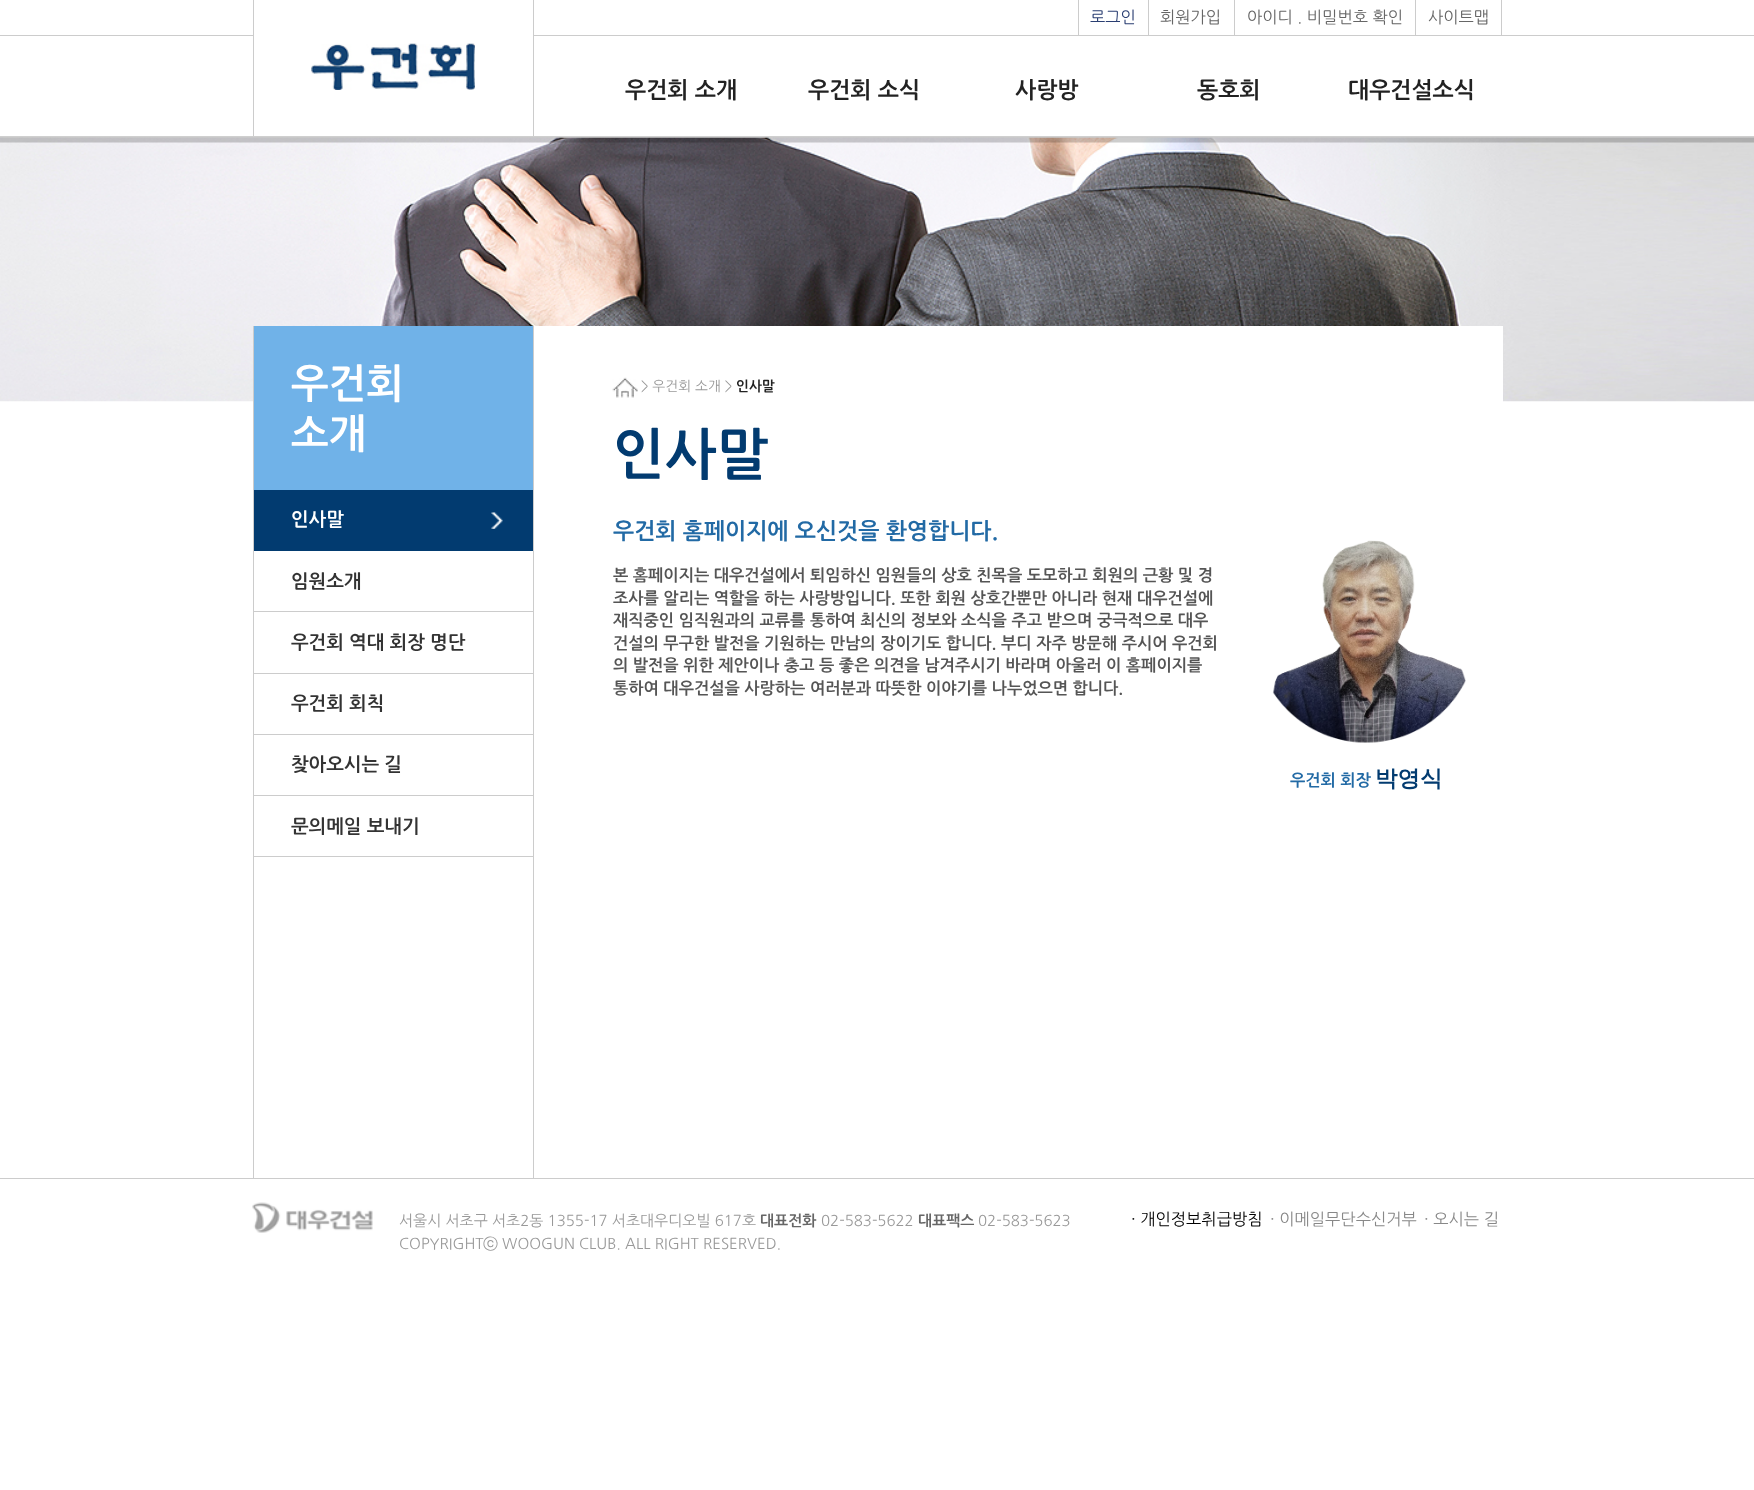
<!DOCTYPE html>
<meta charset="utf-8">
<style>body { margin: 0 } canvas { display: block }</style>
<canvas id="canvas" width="1754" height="1490"></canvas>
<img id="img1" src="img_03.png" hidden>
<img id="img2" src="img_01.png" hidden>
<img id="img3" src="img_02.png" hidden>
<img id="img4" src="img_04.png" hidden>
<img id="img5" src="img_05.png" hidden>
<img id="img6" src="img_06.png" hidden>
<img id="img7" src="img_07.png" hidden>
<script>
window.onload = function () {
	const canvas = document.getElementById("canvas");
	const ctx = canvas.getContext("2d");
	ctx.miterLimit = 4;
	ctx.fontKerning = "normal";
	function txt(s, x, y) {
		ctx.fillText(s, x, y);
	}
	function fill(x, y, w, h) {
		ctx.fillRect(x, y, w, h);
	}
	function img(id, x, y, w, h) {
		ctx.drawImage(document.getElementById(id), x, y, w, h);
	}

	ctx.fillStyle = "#FFFFFF";
	fill(0, 0, 1754, 1490);
	img("img1", 0, 137, 1754, 265);
	img("img2", 0, 136, 1754, 7);
	ctx.fillStyle = "#CCCCCC";
	fill(0, 35, 1754, 1);
	fill(1501, 0, 1, 35);
	fill(1078, 0, 1, 35);
	fill(1148, 0, 1, 35);
	fill(1234, 0, 1, 35);
	fill(1415, 0, 1, 35);
	ctx.fillStyle = "#FFFFFF";
	fill(254, 35, 279, 1);
	ctx.fillStyle = "#CCCCCC";
	fill(533, 0, 1, 136);
	fill(253, 0, 1, 136);
	img("img3", 311, 43, 164, 47);
	fill(533, 326, 1, 852);
	fill(253, 326, 1, 852);
	ctx.fillStyle = "#70B2E8";
	fill(254, 326, 279, 164);
	ctx.fillStyle = "#023B70";
	fill(254, 490, 279, 61);
	img("img4", 491, 512, 12, 17);
	ctx.fillStyle = "#CCCCCC";
	fill(254, 611, 279, 1);
	fill(254, 673, 279, 1);
	fill(254, 734, 279, 1);
	fill(254, 795, 279, 1);
	fill(254, 856, 279, 1);
	ctx.fillStyle = "#FFFFFF";
	fill(534, 326, 969, 76);
	img("img5", 612, 377, 26, 21);
	img("img6", 1272, 540, 194, 203);
	ctx.fillStyle = "#CCCCCC";
	fill(0, 1178, 1754, 1);
	img("img7", 252, 1202, 121, 31);
	ctx.font = "16.25px NanumGothic";
	ctx.fillStyle = "#2A3E72";
	txt("로그인", 1090, 23);
	ctx.fillStyle = "#666666";
	txt("회원가입", 1160, 23);
	txt("아이디 . 비밀번호 확인", 1247, 23);
	txt("사이트맵", 1428, 23);
	ctx.font = "bold 22.5px NanumGothic";
	ctx.fillStyle = "#222222";
	txt("우건회 소개", 625, 98);
	txt("우건회 소식", 808, 98);
	txt("사랑방", 1015, 98);
	txt("동호회", 1197, 98);
	txt("대우건설소식", 1348, 98);
	ctx.font = "bold 40px NanumGothic";
	ctx.fillStyle = "#FFFFFF";
	txt("우건회", 291, 398);
	txt("소개", 291, 448);
	ctx.font = "bold 18.75px NanumGothic";
	txt("인사말", 291, 526);
	ctx.fillStyle = "#333333";
	txt("임원소개", 291, 588);
	txt("우건회 역대 회장 명단", 291, 649);
	txt("우건회 회칙", 291, 710);
	txt("찾아오시는 길", 291, 771);
	txt("문의메일 보내기", 291, 833);
	ctx.font = "13.75px NanumGothic";
	ctx.fillStyle = "#999999";
	txt("> 우건회 소개 >", 641, 391);
	ctx.font = "bold 13.75px NanumGothic";
	ctx.fillStyle = "#222222";
	txt("인사말", 736, 391);
	ctx.font = "bold 55px NanumGothic";
	ctx.fillStyle = "#023B70";
	txt("인사말", 613, 474);
	ctx.save();
	ctx.beginPath();
	ctx.rect(613, 520, 865, 273);
	ctx.clip();
	ctx.font = "bold 22.5px NanumGothic";
	ctx.fillStyle = "#226AA5";
	txt("우건회 홈페이지에 오신것을 환영합니다.", 613, 539);
	ctx.restore();
	ctx.font = "bold 16.25px NanumGothic";
	ctx.fillStyle = "#555555";
	txt("본 홈페이지는 대우건설에서 퇴임하신 임원들의 상호 친목을 도모하고 회원의 근황 및 경", 613, 581);
	txt("조사를 알리는 역할을 하는 사랑방입니다. 또한 회원 상호간뿐만 아니라 현재 대우건설에", 613, 604);
	txt("재직중인 임직원과의 교류를 통하여 최신의 정보와 소식을 주고 받으며 궁극적으로 대우", 613, 626);
	txt("건설의 무구한 발전을 기원하는 만남의 장이기도 합니다. 부디 자주 방문해 주시어 우건회", 613, 649);
	txt("의 발전을 위한 제안이나 충고 등 좋은 의견을 남겨주시기 바라며 아울러 이 홈페이지를", 613, 671);
	txt("통하여 대우건설을 사랑하는 여러분과 따뜻한 이야기를 나누었으면 합니다.", 613, 694);
	ctx.fillStyle = "#226AA5";
	txt("우건회 회장", 1290, 786);
	ctx.font = "bold 22.5px WenQuanYi Zen Hei";
	ctx.fillStyle = "#023B70";
	txt("박영식", 1375, 786);
	ctx.font = "15px NanumGothic";
	ctx.fillStyle = "#999999";
	txt("서울시 서초구 서초2동 1355-17 서초대우디오빌 617호", 399, 1226);
	ctx.font = "bold 15px NanumGothic";
	ctx.fillStyle = "#666666";
	txt("대표전화", 760, 1226);
	ctx.font = "15px NanumGothic";
	ctx.fillStyle = "#999999";
	txt("02-583-5622", 821, 1226);
	ctx.font = "bold 15px NanumGothic";
	ctx.fillStyle = "#666666";
	txt("대표팩스", 918, 1226);
	ctx.font = "15px NanumGothic";
	ctx.fillStyle = "#999999";
	txt("02-583-5623", 978, 1226);
	txt("COPYRIGHT", 399, 1249);
	ctx.font = "500 15px WenQuanYi Zen Hei";
	txt("ⓒ", 483, 1249);
	ctx.font = "15px NanumGothic";
	txt("WOOGUN CLUB. ALL RIGHT RESERVED.", 502, 1249);
	ctx.font = "16.25px NanumGothic";
	ctx.fillStyle = "#000000";
	txt("· 개인정보취급방침", 1131, 1225);
	ctx.fillStyle = "#888888";
	txt("· 이메일무단수신거부", 1270, 1225);
	txt("· 오시는 길", 1424, 1225);
};
</script>
